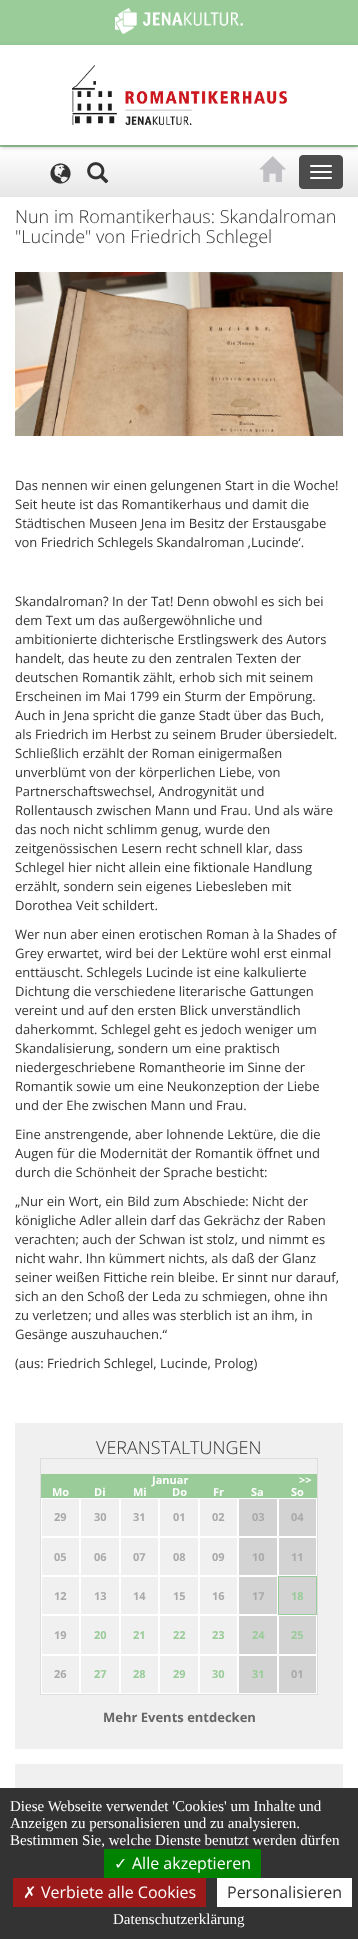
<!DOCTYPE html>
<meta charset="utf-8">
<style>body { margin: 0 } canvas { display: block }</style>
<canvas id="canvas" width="358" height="1939"></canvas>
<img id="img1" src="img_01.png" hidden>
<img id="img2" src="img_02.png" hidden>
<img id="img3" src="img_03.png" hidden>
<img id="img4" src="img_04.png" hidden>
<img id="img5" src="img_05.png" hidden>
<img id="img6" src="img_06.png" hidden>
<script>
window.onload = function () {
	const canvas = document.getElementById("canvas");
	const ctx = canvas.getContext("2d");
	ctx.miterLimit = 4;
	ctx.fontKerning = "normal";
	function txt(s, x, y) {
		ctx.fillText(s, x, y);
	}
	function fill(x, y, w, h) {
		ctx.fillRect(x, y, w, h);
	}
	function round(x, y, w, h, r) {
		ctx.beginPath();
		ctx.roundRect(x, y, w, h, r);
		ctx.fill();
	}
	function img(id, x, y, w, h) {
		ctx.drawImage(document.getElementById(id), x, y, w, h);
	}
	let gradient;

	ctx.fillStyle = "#99CC99";
	fill(0, 0, 358, 1939);
	img("img1", 115, 8, 128, 26);
	gradient = ctx.createLinearGradient(179, 147, 179, 197);
	gradient.addColorStop(0, "#FFFFFF");
	gradient.addColorStop(1, "#E6E6E6");
	ctx.fillStyle = gradient;
	fill(0, 147, 358, 50);
	ctx.fillStyle = "#4C4C4C";
	ctx.beginPath();
	ctx.roundRect(299.5, 155.5, 43, 33, 3.5);
	ctx.fill();
	ctx.strokeStyle = "#4C4C4C";
	ctx.stroke();
	ctx.fillStyle = "rgba(50, 50, 50, 0.3)";
	ctx.filter = "blur(2.5px)";
	ctx.beginPath();
	ctx.rect(0, 47, 358, 100);
	ctx.fill();
	ctx.filter = "none";
	ctx.fillStyle = "#FFFFFF";
	fill(0, 45, 358, 100);
	img("img2", 72, 65, 215, 60);
	img("img3", 50, 163, 21, 21);
	img("img4", 87, 162, 22, 22);
	img("img5", 259, 156, 27, 26);
	round(310, 165, 22, 2, 1);
	round(310, 171, 22, 2, 1);
	round(310, 177, 22, 2, 1);
	fill(0, 197, 358, 1591);
	img("img6", 15, 272, 328, 164);
	ctx.fillStyle = "#F0F0F0";
	fill(15, 1423, 328, 326);
	ctx.strokeStyle = "#DDDDDD";
	ctx.strokeRect(40.5, 1458.5, 277, 236);
	ctx.fillStyle = "#99CC99";
	fill(41, 1474, 276, 24);
	ctx.strokeStyle = "#FFFFFF";
	ctx.strokeRect(41.5, 1498.5, 38, 38);
	ctx.strokeRect(80.5, 1498.5, 39, 38);
	ctx.strokeRect(120.5, 1498.5, 38, 38);
	ctx.strokeRect(159.5, 1498.5, 39, 38);
	ctx.strokeRect(199.5, 1498.5, 38, 38);
	ctx.fillStyle = "#D3D3D3";
	ctx.beginPath();
	ctx.rect(238.5, 1498.5, 39, 38);
	ctx.fill();
	ctx.stroke();
	ctx.beginPath();
	ctx.rect(278.5, 1498.5, 38, 38);
	ctx.fill();
	ctx.stroke();
	ctx.strokeRect(41.5, 1537.5, 38, 38);
	ctx.strokeRect(80.5, 1537.5, 39, 38);
	ctx.strokeRect(120.5, 1537.5, 38, 38);
	ctx.strokeRect(159.5, 1537.5, 39, 38);
	ctx.strokeRect(199.5, 1537.5, 38, 38);
	ctx.beginPath();
	ctx.rect(238.5, 1537.5, 39, 38);
	ctx.fill();
	ctx.stroke();
	ctx.beginPath();
	ctx.rect(278.5, 1537.5, 38, 38);
	ctx.fill();
	ctx.stroke();
	ctx.strokeRect(41.5, 1576.5, 38, 38);
	ctx.strokeRect(80.5, 1576.5, 39, 38);
	ctx.strokeRect(120.5, 1576.5, 38, 38);
	ctx.strokeRect(159.5, 1576.5, 39, 38);
	ctx.strokeRect(199.5, 1576.5, 38, 38);
	ctx.beginPath();
	ctx.rect(238.5, 1576.5, 39, 38);
	ctx.fill();
	ctx.stroke();
	ctx.beginPath();
	ctx.rect(278.5, 1576.5, 38, 38);
	ctx.fill();
	ctx.strokeStyle = "#99CC99";
	ctx.stroke();
	ctx.strokeStyle = "#FFFFFF";
	ctx.strokeRect(41.5, 1615.5, 38, 39);
	ctx.strokeRect(80.5, 1615.5, 39, 39);
	ctx.strokeRect(120.5, 1615.5, 38, 39);
	ctx.strokeRect(159.5, 1615.5, 39, 39);
	ctx.strokeRect(199.5, 1615.5, 38, 39);
	ctx.beginPath();
	ctx.rect(238.5, 1615.5, 39, 39);
	ctx.fill();
	ctx.stroke();
	ctx.beginPath();
	ctx.rect(278.5, 1615.5, 38, 39);
	ctx.fill();
	ctx.stroke();
	ctx.strokeRect(41.5, 1655.5, 38, 38);
	ctx.strokeRect(80.5, 1655.5, 39, 38);
	ctx.strokeRect(120.5, 1655.5, 38, 38);
	ctx.strokeRect(159.5, 1655.5, 39, 38);
	ctx.strokeRect(199.5, 1655.5, 38, 38);
	ctx.beginPath();
	ctx.rect(238.5, 1655.5, 39, 38);
	ctx.fill();
	ctx.stroke();
	ctx.beginPath();
	ctx.rect(278.5, 1655.5, 38, 38);
	ctx.fill();
	ctx.stroke();
	ctx.fillStyle = "#F0F0F0";
	fill(15, 1764, 328, 24);
	ctx.fillStyle = "#333333";
	fill(0, 1788, 358, 151);
	ctx.fillStyle = "#008300";
	fill(104, 1849, 157, 29);
	ctx.fillStyle = "#9C1A1A";
	fill(13, 1878, 193, 29);
	ctx.fillStyle = "#FFFFFF";
	fill(217, 1878, 135, 29);
	ctx.font = "300 18px Open Sans";
	ctx.fillStyle = "#333333";
	txt("Nun im Romantikerhaus: Skandalroman", 15, 223);
	txt("\"Lucinde\" von Friedrich Schlegel", 15, 243);
	ctx.font = "13px Open Sans";
	txt("Das nennen wir einen gelungenen Start in die Woche!", 15, 490);
	txt("Seit heute ist das Romantikerhaus und damit die", 15, 509);
	txt("Städtischen Museen Jena im Besitz der Erstausgabe", 15, 528);
	txt("von Friedrich Schlegels Skandalroman ‚Lucinde‘.", 15, 547);
	txt("Skandalroman? In der Tat! Denn obwohl es sich bei", 15, 606);
	txt("dem Text um das außergewöhnliche und", 15, 625);
	txt("ambitionierte dichterische Erstlingswerk des Autors", 15, 644);
	txt("handelt, das heute zu den zentralen Texten der", 15, 663);
	txt("deutschen Romantik zählt, erhob sich mit seinem", 15, 682);
	txt("Erscheinen im Mai 1799 ein Sturm der Empörung.", 15, 701);
	txt("Auch in Jena spricht die ganze Stadt über das Buch,", 15, 720);
	txt("als Friedrich im Herbst zu seinem Bruder übersiedelt.", 15, 739);
	txt("Schließlich erzählt der Roman einigermaßen", 15, 758);
	txt("unverblümt von der körperlichen Liebe, von", 15, 777);
	txt("Partnerschaftswechsel, Androgynität und", 15, 796);
	txt("Rollentausch zwischen Mann und Frau. Und als wäre", 15, 815);
	txt("das noch nicht schlimm genug, wurde den", 15, 834);
	txt("zeitgenössischen Lesern recht schnell klar, dass", 15, 853);
	txt("Schlegel hier nicht allein eine fiktionale Handlung", 15, 872);
	txt("erzählt, sondern sein eigenes Liebesleben mit", 15, 891);
	txt("Dorothea Veit schildert.", 15, 910);
	txt("Wer nun aber einen erotischen Roman à la Shades of", 15, 939);
	txt("Grey erwartet, wird bei der Lektüre wohl erst einmal", 15, 958);
	txt("enttäuscht. Schlegels Lucinde ist eine kalkulierte", 15, 977);
	txt("Dichtung die verschiedene literarische Gattungen", 15, 996);
	txt("vereint und auf den ersten Blick unverständlich", 15, 1015);
	txt("daherkommt. Schlegel geht es jedoch weniger um", 15, 1034);
	txt("Skandalisierung, sondern um eine praktisch", 15, 1053);
	txt("niedergeschriebene Romantheorie im Sinne der", 15, 1072);
	txt("Romantik sowie um eine Neukonzeption der Liebe", 15, 1091);
	txt("und der Ehe zwischen Mann und Frau.", 15, 1110);
	txt("Eine anstrengende, aber lohnende Lektüre, die die", 15, 1139);
	txt("Augen für die Modernität der Romantik öffnet und", 15, 1158);
	txt("durch die Schönheit der Sprache besticht:", 15, 1177);
	txt("„Nur ein Wort, ein Bild zum Abschiede: Nicht der", 15, 1206);
	txt("königliche Adler allein darf das Gekrächz der Raben", 15, 1225);
	txt("verachten; auch der Schwan ist stolz, und nimmt es", 15, 1244);
	txt("nicht wahr. Ihn kümmert nichts, als daß der Glanz", 15, 1263);
	txt("seiner weißen Fittiche rein bleibe. Er sinnt nur darauf,", 15, 1282);
	txt("sich an den Schoß der Leda zu schmiegen, ohne ihn", 15, 1301);
	txt("zu verletzen; und alles was sterblich ist an ihm, in", 15, 1320);
	txt("Gesänge auszuhauchen.“", 15, 1339);
	txt("(aus: Friedrich Schlegel, Lucinde, Prolog)", 15, 1368);
	ctx.font = "300 18px Open Sans";
	txt("VERANSTALTUNGEN", 96, 1454);
	ctx.font = "bold 11px Open Sans";
	ctx.fillStyle = "#FFFFFF";
	txt("Januar", 152, 1484);
	txt(">>", 299, 1484);
	txt("Mo", 52, 1496);
	txt("Di", 94, 1496);
	txt("Mi", 133, 1496);
	txt("Do", 172, 1496);
	txt("Fr", 213, 1496);
	txt("Sa", 251, 1496);
	txt("So", 291, 1496);
	ctx.fillStyle = "#A9A9A9";
	txt("29", 54, 1521);
	txt("30", 94, 1521);
	txt("31", 133, 1521);
	txt("01", 173, 1521);
	txt("02", 212, 1521);
	txt("03", 252, 1521);
	txt("04", 291, 1521);
	txt("05", 54, 1561);
	txt("06", 94, 1561);
	txt("07", 133, 1561);
	txt("08", 173, 1561);
	txt("09", 212, 1561);
	txt("10", 252, 1561);
	txt("11", 291, 1561);
	txt("12", 54, 1600);
	txt("13", 94, 1600);
	txt("14", 133, 1600);
	txt("15", 173, 1600);
	txt("16", 212, 1600);
	txt("17", 252, 1600);
	ctx.fillStyle = "#99CC99";
	txt("18", 291, 1600);
	ctx.fillStyle = "#A9A9A9";
	txt("19", 54, 1639);
	ctx.fillStyle = "#99CC99";
	txt("20", 94, 1639);
	txt("21", 133, 1639);
	txt("22", 173, 1639);
	txt("23", 212, 1639);
	txt("24", 252, 1639);
	txt("25", 291, 1639);
	ctx.fillStyle = "#A9A9A9";
	txt("26", 54, 1678);
	ctx.fillStyle = "#99CC99";
	txt("27", 94, 1678);
	txt("28", 133, 1678);
	txt("29", 173, 1678);
	txt("30", 212, 1678);
	txt("31", 252, 1678);
	ctx.fillStyle = "#A9A9A9";
	txt("01", 291, 1678);
	ctx.font = "bold 13px Open Sans";
	ctx.fillStyle = "#666666";
	txt("Mehr Events entdecken", 103, 1722);
	ctx.font = "15px Liberation Serif";
	ctx.fillStyle = "#FFFFFF";
	txt("Diese Webseite verwendet 'Cookies' um Inhalte und", 10, 1811);
	txt("Anzeigen zu personalisieren und zu analysieren.", 10, 1828);
	txt("Bestimmen Sie, welche Dienste benutzt werden dürfen", 10, 1845);
	ctx.font = "16px DejaVu Sans";
	txt("✓", 114, 1869);
	ctx.font = "16px Open Sans";
	txt("Alle akzeptieren", 132, 1869);
	ctx.font = "16px DejaVu Sans";
	txt("✗", 23, 1898);
	ctx.font = "16px Open Sans";
	txt("Verbiete alle Cookies", 41, 1898);
	ctx.fillStyle = "#333333";
	txt("Personalisieren", 227, 1898);
	ctx.font = "15px Liberation Serif";
	ctx.fillStyle = "#FFFFFF";
	txt("Datenschutzerklärung", 113, 1924);
};
</script>
